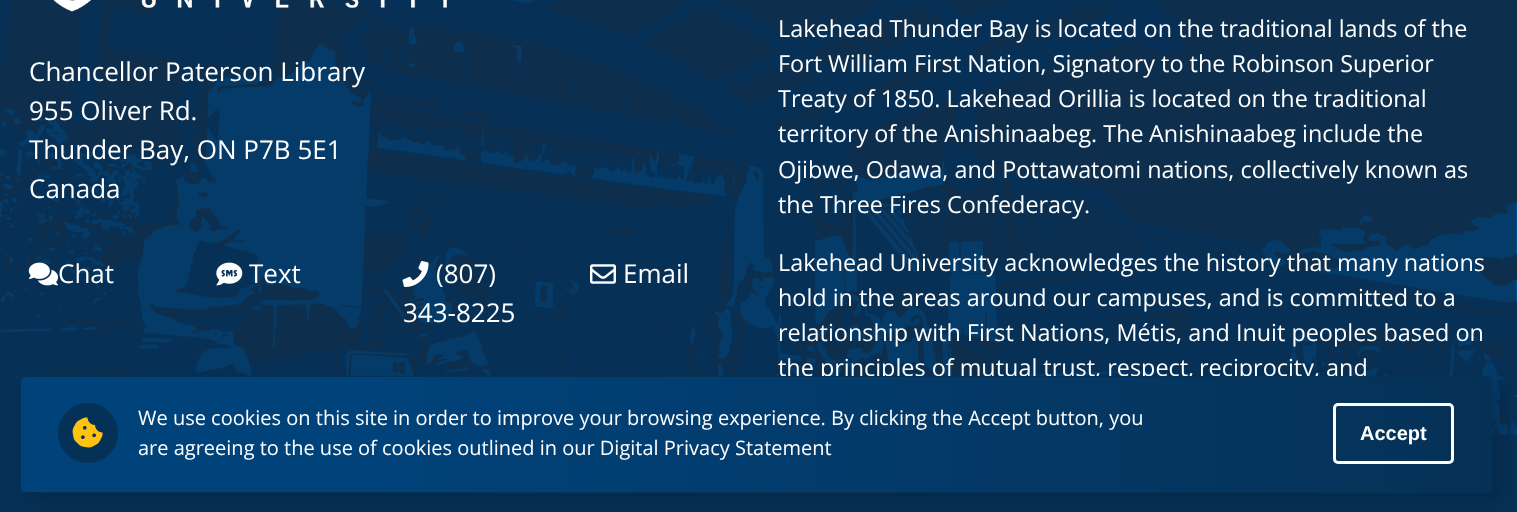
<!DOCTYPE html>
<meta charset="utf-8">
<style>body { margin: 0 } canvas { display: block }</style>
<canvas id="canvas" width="1517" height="512"></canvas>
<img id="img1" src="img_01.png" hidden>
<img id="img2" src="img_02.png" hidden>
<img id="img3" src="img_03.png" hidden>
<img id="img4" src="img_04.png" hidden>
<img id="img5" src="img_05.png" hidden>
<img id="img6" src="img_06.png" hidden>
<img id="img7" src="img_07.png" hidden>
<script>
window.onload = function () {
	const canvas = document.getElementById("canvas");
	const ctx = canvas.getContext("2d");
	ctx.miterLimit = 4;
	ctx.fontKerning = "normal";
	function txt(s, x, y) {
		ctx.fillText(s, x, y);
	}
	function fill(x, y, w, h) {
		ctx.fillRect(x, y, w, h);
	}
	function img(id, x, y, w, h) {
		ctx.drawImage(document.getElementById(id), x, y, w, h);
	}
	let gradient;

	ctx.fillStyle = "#292929";
	fill(0, 0, 1517, 512);
	img("img1", 0, 0, 1517, 440);
	img("img2", 53, 0, 394, 12);
	img("img3", 28, 262, 31, 24);
	img("img4", 216, 262, 27, 24);
	img("img5", 402, 261, 27, 26);
	img("img6", 590, 264, 26, 20);
	ctx.fillStyle = "#063156";
	fill(0, 440, 1517, 72);
	ctx.fillStyle = "rgba(0, 0, 0, 0.13)";
	ctx.filter = "blur(8px)";
	ctx.beginPath();
	ctx.roundRect(30, 386, 1473, 117, 6);
	ctx.fill();
	ctx.filter = "none";
	ctx.save();
	ctx.beginPath();
	ctx.roundRect(20, 376, 1473, 117, 6);
	ctx.clip();
	gradient = ctx.createLinearGradient(21, 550, 1491, 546);
	gradient.addColorStop(0.24, "#00427A");
	gradient.addColorStop(1, "#063156");
	ctx.fillStyle = gradient;
	fill(21, 491, 1470, 2);
	ctx.restore();
	ctx.font = "26px Open Sans";
	ctx.fillStyle = "#FFFFFF";
	txt("Chancellor Paterson Library", 29, 81);
	txt("955 Oliver Rd.", 29, 120);
	txt("Thunder Bay, ON P7B 5E1", 29, 159);
	txt("Canada", 29, 198);
	txt("Chat", 58, 283);
	txt("Text", 249, 283);
	txt("(807)", 436, 283);
	txt("343-8225", 403, 322);
	txt("Email", 623, 283);
	ctx.font = "23.4px Open Sans";
	txt("Lakehead Thunder Bay is located on the traditional lands of the", 778, 37);
	txt("Fort William First Nation, Signatory to the Robinson Superior", 778, 72);
	txt("Treaty of 1850. Lakehead Orillia is located on the traditional", 778, 107);
	txt("territory of the Anishinaabeg. The", 778, 142);
	txt("Anishinaabeg include the", 1149, 142);
	txt("Ojibwe, Odawa, and Pottawatomi nations, collectively known as", 778, 178);
	txt("the Three Fires Confederacy.", 778, 213);
	txt("Lakehead University acknowledges the history that many nations", 778, 271);
	txt("hold in the areas around our campuses, and is committed to a", 778, 306);
	txt("relationship with First Nations, Métis, and Inuit peoples based on", 778, 341);
	txt("the principles of mutual trust, respect,", 778, 376);
	txt("reciprocity, and", 1199, 376);
	ctx.save();
	ctx.beginPath();
	ctx.roundRect(20, 376, 1473, 117, 6);
	ctx.clip();
	gradient = ctx.createLinearGradient(21, 322, 1491, 319);
	gradient.addColorStop(0.24, "#00427A");
	gradient.addColorStop(1, "#063156");
	ctx.fillStyle = gradient;
	fill(21, 376, 1470, 2);
	ctx.restore();
	gradient = ctx.createLinearGradient(21, 436, 1491, 433);
	gradient.addColorStop(0.24, "#00427A");
	gradient.addColorStop(1, "#063156");
	ctx.fillStyle = gradient;
	fill(21, 378, 1470, 113);
	ctx.beginPath();
	ctx.roundRect(20.5, 376.5, 1472, 116, 5.5);
	ctx.strokeStyle = "#063156";
	ctx.stroke();
	ctx.fillStyle = "#063156";
	ctx.beginPath();
	ctx.arc(88, 433, 30, 0, Math.PI * 2);
	ctx.fill();
	img("img7", 72, 417, 31, 31);
	ctx.font = "20px Open Sans";
	ctx.fillStyle = "#FFFFFF";
	txt("We use cookies on this site in order to improve your browsing experience. By clicking the Accept button, you", 138, 425);
	txt("are agreeing to the use of cookies outlined in our Digital Privacy Statement", 138, 455);
	ctx.beginPath();
	ctx.roundRect(1334.5, 404.5, 118, 58, 3.5);
	ctx.strokeStyle = "#FFFFFF";
	ctx.lineWidth = 3;
	ctx.stroke();
	ctx.font = "bold 20px Liberation Sans";
	txt("Accept", 1360, 440);
};
</script>
